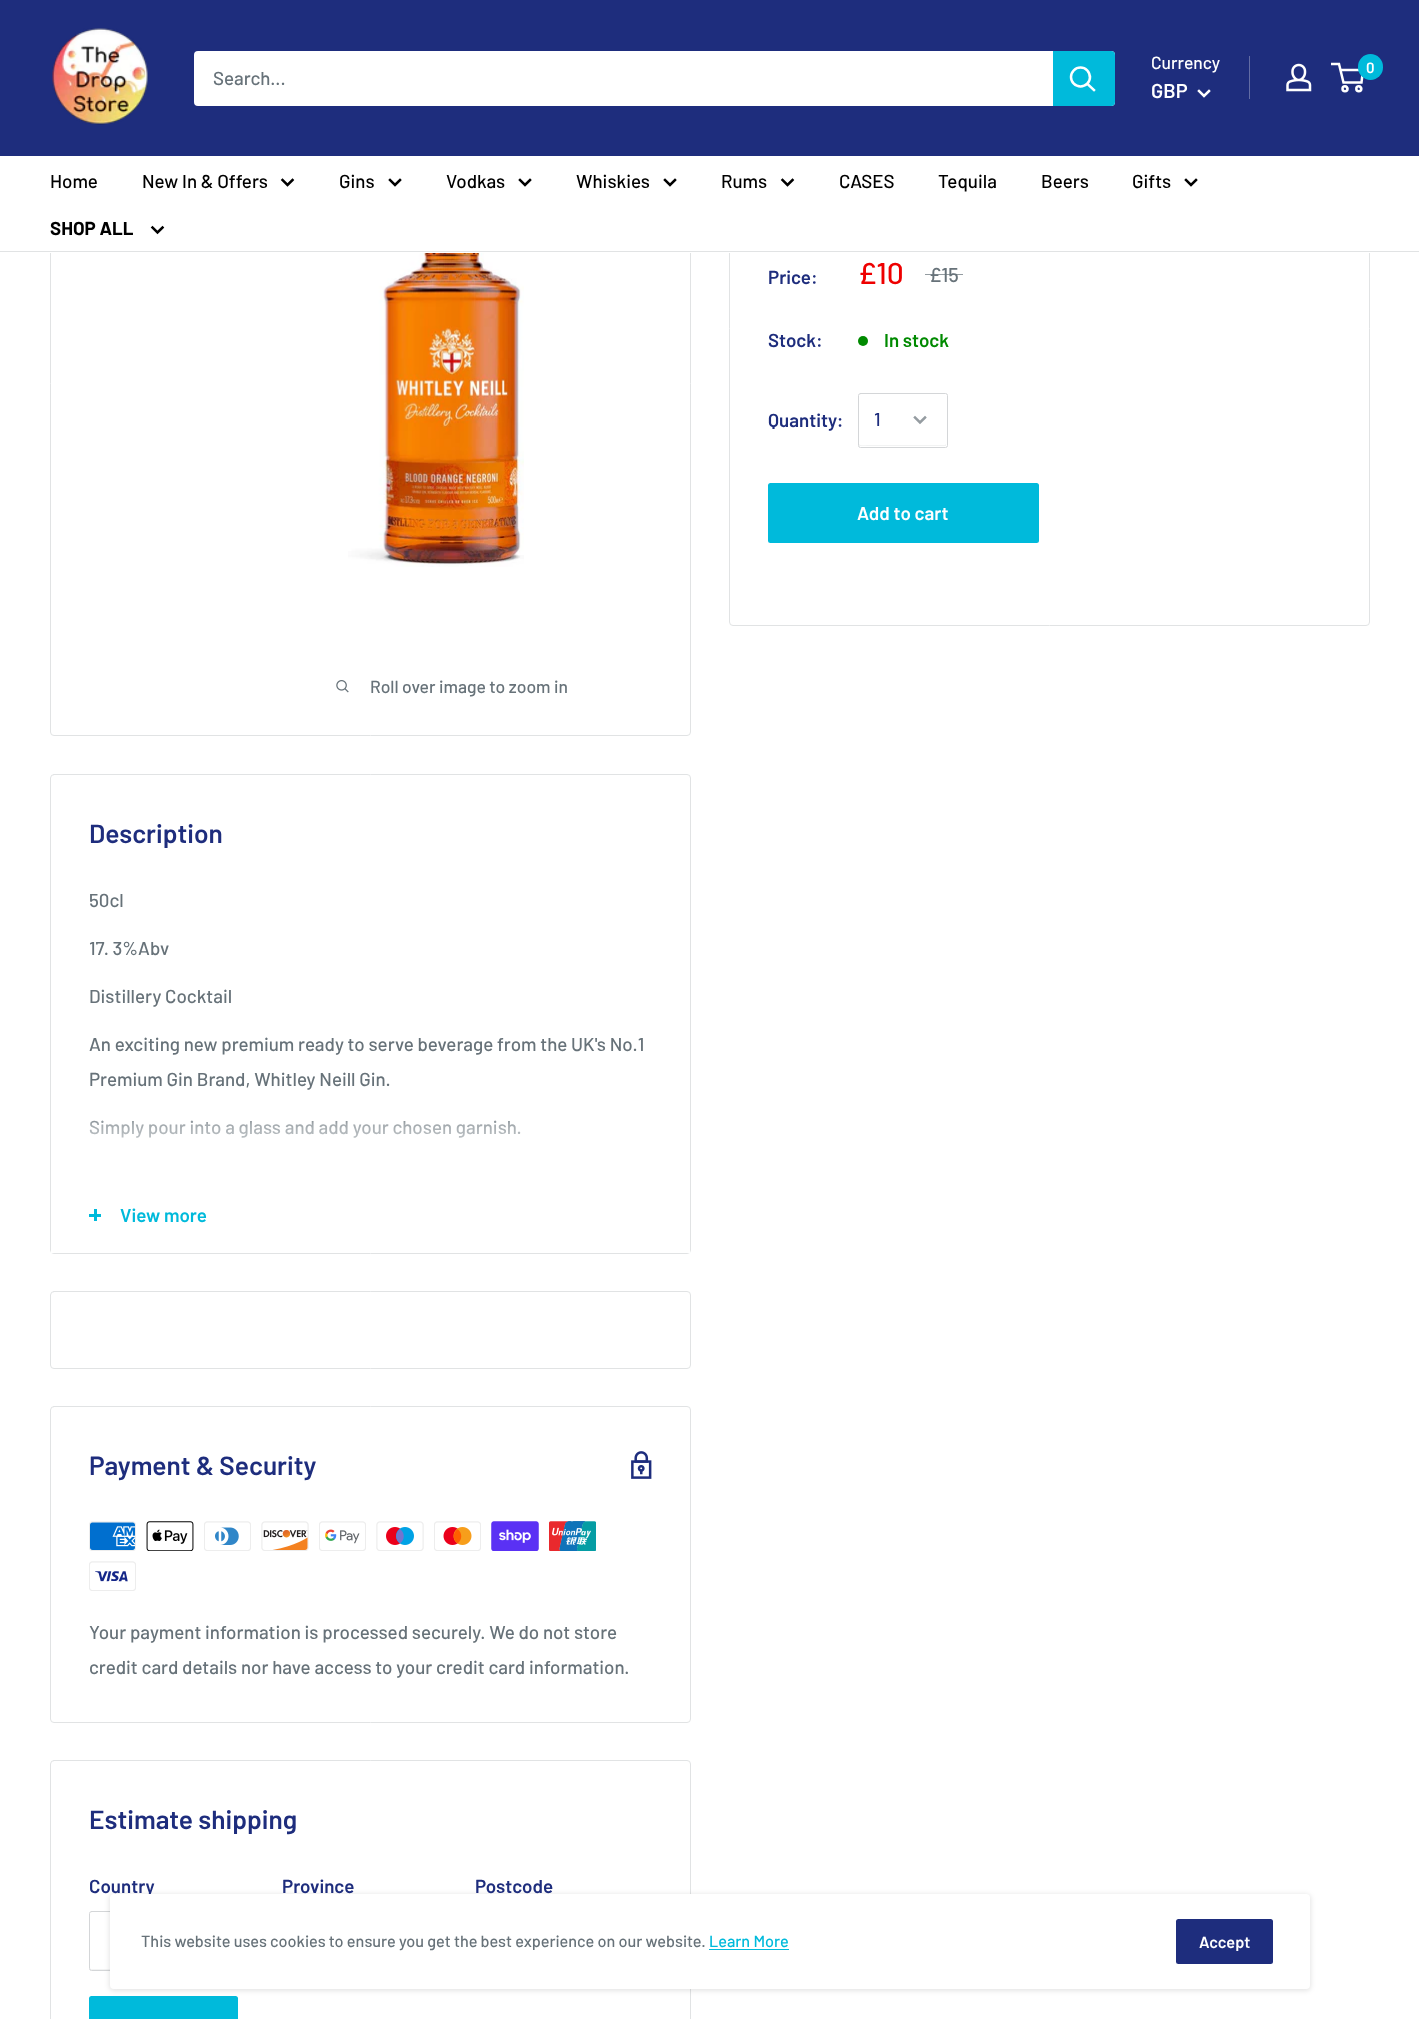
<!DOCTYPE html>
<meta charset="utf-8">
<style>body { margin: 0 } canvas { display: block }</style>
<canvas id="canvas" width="1419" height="2019"></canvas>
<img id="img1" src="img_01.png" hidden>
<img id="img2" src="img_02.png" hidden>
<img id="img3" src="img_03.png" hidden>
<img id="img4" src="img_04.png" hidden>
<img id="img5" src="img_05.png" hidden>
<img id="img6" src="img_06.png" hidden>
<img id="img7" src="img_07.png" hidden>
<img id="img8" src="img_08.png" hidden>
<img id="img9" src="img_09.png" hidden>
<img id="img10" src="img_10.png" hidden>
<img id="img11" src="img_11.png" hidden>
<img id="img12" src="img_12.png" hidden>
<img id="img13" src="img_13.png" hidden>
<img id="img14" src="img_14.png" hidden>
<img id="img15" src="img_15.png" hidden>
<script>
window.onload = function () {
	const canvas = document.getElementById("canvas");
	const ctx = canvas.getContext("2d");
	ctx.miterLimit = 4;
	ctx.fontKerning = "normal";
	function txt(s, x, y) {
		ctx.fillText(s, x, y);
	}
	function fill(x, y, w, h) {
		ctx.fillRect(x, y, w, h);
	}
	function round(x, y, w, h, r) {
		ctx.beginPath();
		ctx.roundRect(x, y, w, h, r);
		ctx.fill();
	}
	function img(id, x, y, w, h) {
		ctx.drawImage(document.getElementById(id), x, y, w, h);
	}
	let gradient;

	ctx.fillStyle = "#FFFFFF";
	fill(0, 0, 1419, 2019);
	ctx.beginPath();
	ctx.roundRect(729.5, 31.5, 640, 594, 3.5);
	ctx.strokeStyle = "#E1E3E4";
	ctx.stroke();
	ctx.beginPath();
	ctx.roundRect(50.5, 31.5, 640, 704, 3.5);
	ctx.stroke();
	ctx.fillStyle = "#1E2D7D";
	fill(0, 0, 1419, 156);
	img("img1", 52, 28, 97, 97);
	ctx.fillStyle = "#FFFFFF";
	round(194, 51, 921, 55, 4);
	ctx.fillStyle = "#00BADB";
	ctx.beginPath();
	ctx.roundRect(1053, 51, 62, 55, [0, 4, 4, 0]);
	ctx.fill();
	ctx.beginPath();
	ctx.moveTo(1094, 90);
	ctx.lineTo(1087.5, 84);
	ctx.strokeStyle = "#FFFFFF";
	ctx.lineWidth = 2.5;
	ctx.lineCap = "square";
	ctx.stroke();
	ctx.beginPath();
	ctx.arc(1080.5, 77, 9.5, 0, Math.PI * 2);
	ctx.stroke();
	ctx.fillStyle = "#626CA4";
	fill(1249, 56, 1, 43);
	ctx.beginPath();
	ctx.moveTo(1209, 91);
	ctx.lineTo(1204, 96);
	ctx.lineTo(1199, 91);
	ctx.stroke();
	img("img2", 1286, 63, 26, 29);
	ctx.beginPath();
	ctx.arc(1345, 88.8, 2.5, 0, Math.PI * 2);
	ctx.stroke();
	ctx.beginPath();
	ctx.arc(1358.8, 88.8, 2.5, 0, Math.PI * 2);
	ctx.stroke();
	ctx.beginPath();
	ctx.moveTo(1340.5, 70);
	ctx.lineTo(1363, 70);
	ctx.lineTo(1361.5, 82.5);
	ctx.lineTo(1343.5, 82.5);
	ctx.lineTo(1339, 64);
	ctx.lineTo(1331, 64);
	ctx.lineCap = "butt";
	ctx.stroke();
	ctx.fillStyle = "#00BADB";
	round(1358, 54, 25, 26, 12.5);
	ctx.fillStyle = "#FFFFFF";
	fill(50, 156, 1320, 97);
	ctx.fillStyle = "#E1E3E4";
	fill(0, 251, 1419, 1);
	ctx.beginPath();
	ctx.moveTo(292.5, 180);
	ctx.lineTo(287.5, 185);
	ctx.lineTo(282.5, 180);
	ctx.strokeStyle = "#000000";
	ctx.lineCap = "square";
	ctx.stroke();
	ctx.beginPath();
	ctx.moveTo(400, 180);
	ctx.lineTo(395, 185);
	ctx.lineTo(390, 180);
	ctx.stroke();
	ctx.beginPath();
	ctx.moveTo(530, 180);
	ctx.lineTo(525, 185);
	ctx.lineTo(520, 180);
	ctx.stroke();
	ctx.beginPath();
	ctx.moveTo(675, 180);
	ctx.lineTo(670, 185);
	ctx.lineTo(665, 180);
	ctx.stroke();
	ctx.beginPath();
	ctx.moveTo(792.5, 180);
	ctx.lineTo(787.5, 185);
	ctx.lineTo(782.5, 180);
	ctx.stroke();
	ctx.beginPath();
	ctx.moveTo(1196, 180);
	ctx.lineTo(1191, 185);
	ctx.lineTo(1186, 180);
	ctx.stroke();
	ctx.beginPath();
	ctx.moveTo(162.5, 227.5);
	ctx.lineTo(157.5, 232.5);
	ctx.lineTo(152.5, 227.5);
	ctx.stroke();
	ctx.fillStyle = "#008A00";
	ctx.beginPath();
	ctx.arc(863, 341, 5, 0, Math.PI * 2);
	ctx.fill();
	ctx.fillStyle = "#F2F3F3";
	ctx.beginPath();
	ctx.moveTo(859, 444);
	ctx.lineTo(859, 446);
	ctx.lineTo(946, 446);
	ctx.lineTo(946, 444);
	ctx.lineTo(945, 445);
	ctx.lineTo(868, 445);
	ctx.bezierCurveTo(866, 445, 860, 446, 859, 444);
	ctx.closePath();
	ctx.fill();
	ctx.beginPath();
	ctx.roundRect(858.5, 393.5, 89, 54, 2);
	ctx.strokeStyle = "#D4D6D8";
	ctx.lineWidth = 1;
	ctx.stroke();
	ctx.beginPath();
	ctx.moveTo(925, 417.5);
	ctx.lineTo(920, 422.5);
	ctx.lineTo(915, 417.5);
	ctx.strokeStyle = "#959CA1";
	ctx.lineWidth = 2.5;
	ctx.stroke();
	ctx.fillStyle = "#00BADB";
	round(768, 483, 271, 60, 2.5);
	img("img3", 348, 253, 176, 314);
	img("img4", 336, 680, 13, 13);
	ctx.beginPath();
	ctx.roundRect(50.5, 774.5, 640, 479, 3.5);
	ctx.strokeStyle = "#E1E3E4";
	ctx.lineWidth = 1;
	ctx.stroke();
	ctx.fillStyle = "#FFFFFF";
	fill(51, 1250, 639, 3);
	ctx.fillStyle = "#00BADB";
	fill(94, 1209, 3, 12);
	fill(89, 1214, 12, 3);
	ctx.beginPath();
	ctx.roundRect(50.5, 1291.5, 640, 77, 3.5);
	ctx.stroke();
	ctx.beginPath();
	ctx.roundRect(50.5, 1406.5, 640, 316, 3.5);
	ctx.stroke();
	img("img5", 631, 1451, 21, 28);
	img("img6", 89, 1521, 47, 30);
	img("img7", 146, 1521, 48, 30);
	img("img8", 204, 1521, 47, 30);
	img("img9", 261, 1521, 48, 30);
	img("img10", 319, 1521, 47, 30);
	img("img11", 376, 1521, 48, 30);
	img("img12", 434, 1521, 47, 30);
	img("img13", 491, 1521, 48, 30);
	img("img14", 549, 1521, 47, 30);
	img("img15", 89, 1561, 47, 30);
	ctx.beginPath();
	ctx.roundRect(50.5, 1760.5, 640, 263, 3.5);
	ctx.stroke();
	ctx.fillStyle = "#F2F3F3";
	ctx.beginPath();
	ctx.moveTo(90, 1968);
	ctx.lineTo(90, 1970);
	ctx.lineTo(264, 1970);
	ctx.bezierCurveTo(265, 1970, 265, 1969, 265, 1968);
	ctx.lineTo(264, 1969);
	ctx.lineTo(91, 1969);
	ctx.closePath();
	ctx.fill();
	ctx.beginPath();
	ctx.roundRect(89.5, 1911.5, 176, 59, 2);
	ctx.strokeStyle = "#D4D6D8";
	ctx.stroke();
	ctx.fillStyle = "#00BADB";
	round(89, 1996, 149, 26, 2.5);
	ctx.fillStyle = "rgba(0, 0, 0, 0.1)";
	ctx.filter = "blur(2.5px)";
	ctx.beginPath();
	ctx.roundRect(109, 1894, 1202, 97, 5);
	ctx.fill();
	ctx.filter = "none";
	ctx.font = "500 18.75px Barlow";
	ctx.fillStyle = "#677279";
	txt("Search...", 213, 85);
	ctx.font = "500 17.5px Barlow";
	ctx.fillStyle = "#FFFFFF";
	txt("Currency", 1151, 69);
	ctx.font = "600 20px Barlow";
	txt("GBP", 1151, 98);
	ctx.font = "600 15px Barlow";
	txt("0", 1366, 73);
	ctx.font = "500 18.75px Barlow";
	ctx.fillStyle = "#000000";
	txt("Home", 50, 188);
	txt("New In & Offers", 142, 188);
	txt("Gins", 339, 188);
	txt("Vodkas", 446, 188);
	txt("Whiskies", 576, 188);
	txt("Rums", 721, 188);
	txt("CASES", 839, 188);
	txt("Tequila", 938, 188);
	txt("Beers", 1041, 188);
	txt("Gifts", 1132, 188);
	ctx.font = "bold 18.75px Barlow";
	txt("SHOP ALL", 50, 235);
	ctx.font = "600 18.75px Barlow";
	ctx.fillStyle = "#1E2D7D";
	txt("Price:", 768, 284);
	ctx.font = "500 30px Barlow";
	ctx.fillStyle = "#EE0000";
	txt("£10", 858, 284);
	ctx.font = "500 20px Barlow";
	ctx.fillStyle = "#677279";
	txt("£15", 929, 282);
	ctx.fillStyle = "rgba(103, 114, 121, 0.7)";
	fill(925, 274, 38, 1);
	ctx.font = "600 18.75px Barlow";
	ctx.fillStyle = "#1E2D7D";
	txt("Stock:", 768, 347);
	ctx.fillStyle = "#008A00";
	txt("In stock", 884, 347);
	ctx.fillStyle = "#1E2D7D";
	txt("Quantity:", 768, 427);
	ctx.font = "500 18.75px Barlow";
	txt("1", 874, 426);
	ctx.font = "600 18.75px Barlow";
	ctx.fillStyle = "#FFFFFF";
	txt("Add to cart", 857, 520);
	ctx.font = "500 17.5px Barlow";
	ctx.fillStyle = "#677279";
	txt("Roll over image to zoom in", 370, 693);
	ctx.font = "600 26.25px Barlow";
	ctx.fillStyle = "#1E2D7D";
	txt("Description", 89, 843);
	ctx.font = "500 18.75px Barlow";
	ctx.fillStyle = "#677279";
	txt("50cl", 89, 907);
	txt("17. 3%Abv", 89, 955);
	txt("Distillery Cocktail", 89, 1003);
	txt("An exciting new premium ready to serve beverage from the UK's No.1", 89, 1051);
	txt("Premium Gin Brand, Whitley Neill Gin.", 89, 1086);
	txt("Simply pour into a glass and add your chosen garnish.", 89, 1134);
	gradient = ctx.createLinearGradient(371, 1115, 371, 1178);
	gradient.addColorStop(0, "rgba(255, 255, 255, 0)");
	gradient.addColorStop(0.15, "rgba(255, 255, 255, 0.4)");
	gradient.addColorStop(1, "#FFFFFF");
	ctx.fillStyle = gradient;
	fill(89, 1120, 432, 18);
	ctx.font = "600 18.75px Barlow";
	ctx.fillStyle = "#00BADB";
	txt("View more", 120, 1222);
	ctx.font = "600 26.25px Barlow";
	ctx.fillStyle = "#1E2D7D";
	txt("Payment & Security", 89, 1475);
	ctx.font = "500 18.75px Barlow";
	ctx.fillStyle = "#677279";
	txt("Your payment information is processed securely. We do not store", 89, 1639);
	txt("credit card details nor have access to your credit card information.", 89, 1674);
	ctx.font = "600 26.25px Barlow";
	ctx.fillStyle = "#1E2D7D";
	txt("Estimate shipping", 89, 1829);
	ctx.font = "600 18.75px Barlow";
	txt("Country", 89, 1893);
	txt("Province", 282, 1893);
	txt("Postcode", 475, 1893);
	ctx.fillStyle = "#FFFFFF";
	round(110, 1894, 1200, 95, 4);
	ctx.font = "500 16.25px Barlow";
	ctx.fillStyle = "#677279";
	txt("This website uses cookies to ensure you get the best experience on our website.", 141, 1947);
	ctx.fillStyle = "#00BADB";
	txt("Learn More", 709, 1947);
	fill(709, 1949, 80, 1);
	ctx.fillStyle = "#1E2D7D";
	round(1176, 1919, 97, 45, 2.5);
	ctx.font = "600 16.25px Barlow";
	ctx.fillStyle = "#FFFFFF";
	txt("Accept", 1199, 1948);
};
</script>
